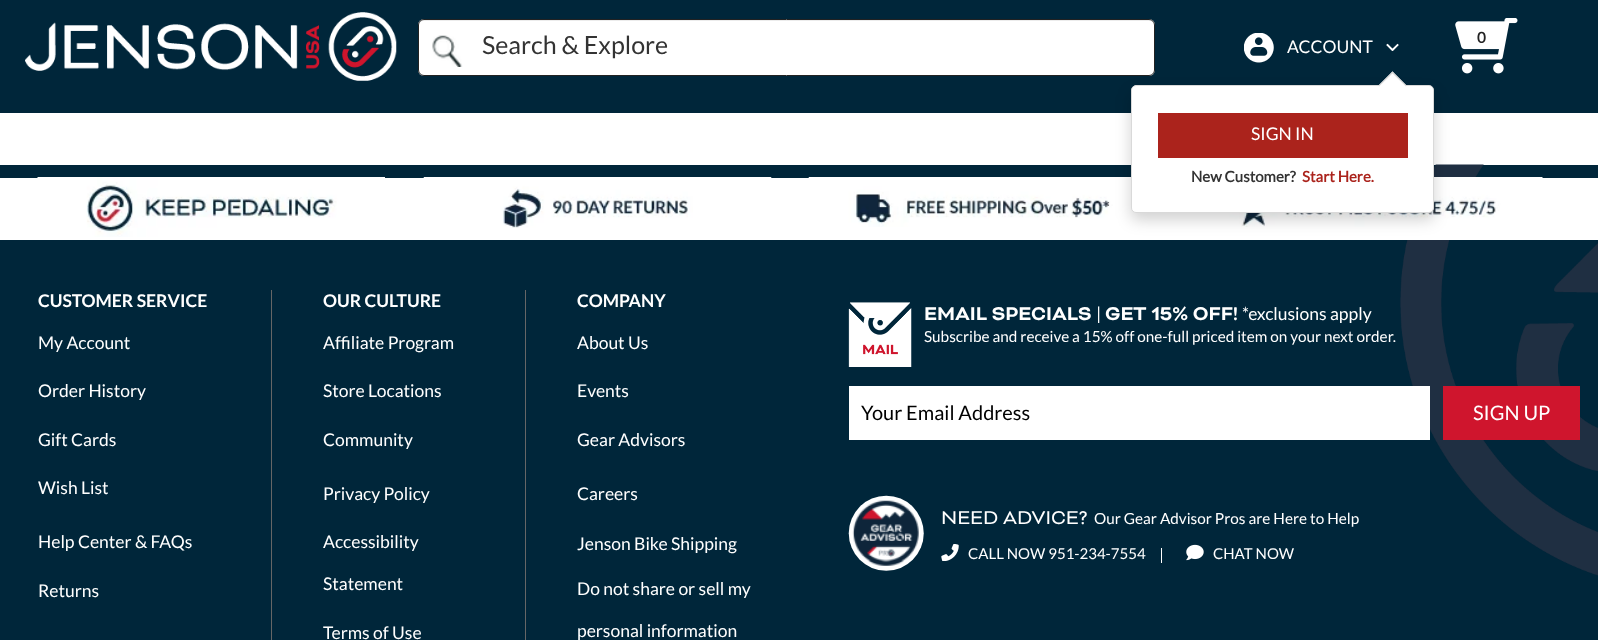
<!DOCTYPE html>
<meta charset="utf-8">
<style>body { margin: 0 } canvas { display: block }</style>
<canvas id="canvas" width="1598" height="640"></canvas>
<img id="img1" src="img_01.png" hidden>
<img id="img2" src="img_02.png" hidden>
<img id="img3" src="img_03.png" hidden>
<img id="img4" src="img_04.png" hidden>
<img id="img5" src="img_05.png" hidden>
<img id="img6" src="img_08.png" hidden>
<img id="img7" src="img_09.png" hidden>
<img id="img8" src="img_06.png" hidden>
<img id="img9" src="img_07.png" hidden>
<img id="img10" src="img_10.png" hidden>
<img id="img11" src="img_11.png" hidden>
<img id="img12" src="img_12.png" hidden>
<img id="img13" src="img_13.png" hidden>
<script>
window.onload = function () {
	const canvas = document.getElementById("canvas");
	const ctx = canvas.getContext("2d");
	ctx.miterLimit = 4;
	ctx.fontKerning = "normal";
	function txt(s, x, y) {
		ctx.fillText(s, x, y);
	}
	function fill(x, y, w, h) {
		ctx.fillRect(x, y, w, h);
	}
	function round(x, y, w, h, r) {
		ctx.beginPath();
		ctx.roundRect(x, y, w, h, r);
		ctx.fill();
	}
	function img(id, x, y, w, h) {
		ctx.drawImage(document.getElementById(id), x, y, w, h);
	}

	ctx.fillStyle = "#FFFFFF";
	fill(0, 0, 1598, 640);
	ctx.fillStyle = "#00263A";
	fill(0, 0, 1598, 113);
	img("img1", 25, 12, 372, 69);
	ctx.fillStyle = "#FFFFFF";
	round(418, 19, 737, 57, 6);
	ctx.fillStyle = "#ECECEC";
	ctx.beginPath();
	ctx.moveTo(424, 21);
	ctx.lineTo(1149, 21);
	ctx.bezierCurveTo(1152, 21, 1154, 23, 1154, 26);
	ctx.bezierCurveTo(1154, 23, 1152, 20, 1149, 20);
	ctx.lineTo(424, 20);
	ctx.bezierCurveTo(421, 20, 419, 23, 419, 26);
	ctx.bezierCurveTo(419, 23, 421, 21, 424, 21);
	ctx.closePath();
	ctx.fill();
	ctx.beginPath();
	ctx.roundRect(418.5, 19.5, 736, 56, 5.5);
	ctx.strokeStyle = "#222222";
	ctx.stroke();
	img("img2", 432, 35, 31, 32);
	img("img3", 1244, 33, 30, 30);
	ctx.beginPath();
	ctx.moveTo(1387.5, 45);
	ctx.lineTo(1392.5, 50);
	ctx.lineTo(1397.5, 45);
	ctx.strokeStyle = "#FFFFFF";
	ctx.lineWidth = 1.9;
	ctx.lineCap = "square";
	ctx.lineJoin = "round";
	ctx.stroke();
	img("img4", 1455, 18, 63, 56);
	ctx.fillStyle = "#00263A";
	fill(0, 165, 1598, 475);
	img("img5", 1400, 164, 198, 412);
	ctx.fillStyle = "#FFFFFF";
	fill(0, 178, 1598, 62);
	img("img6", 808, 177, 349, 50);
	img("img7", 1195, 177, 348, 50);
	ctx.fillStyle = "rgba(0, 0, 0, 0.18)";
	ctx.filter = "blur(7.5px)";
	ctx.beginPath();
	ctx.roundRect(1131, 93, 303, 127, 5);
	ctx.fill();
	ctx.filter = "none";
	ctx.fillStyle = "#FFFFFF";
	ctx.beginPath();
	ctx.roundRect(1131.5, 85.5, 302, 127, 4.5);
	ctx.fill();
	ctx.strokeStyle = "#D9D9D9";
	ctx.lineWidth = 1;
	ctx.lineJoin = "miter";
	ctx.stroke();
	ctx.beginPath();
	ctx.moveTo(1406.5, 85.5);
	ctx.lineTo(1392.5, 100);
	ctx.lineTo(1378.5, 85.5);
	ctx.lineTo(1392.5, 71.5);
	ctx.closePath();
	ctx.fill();
	ctx.fillStyle = "#D9D9D9";
	ctx.beginPath();
	ctx.moveTo(1393.5, 72.5);
	ctx.lineTo(1379, 86.5);
	ctx.lineTo(1378.5, 85.5);
	ctx.lineTo(1392.5, 71.5);
	ctx.closePath();
	ctx.fill();
	ctx.beginPath();
	ctx.moveTo(1406.5, 85.5);
	ctx.lineTo(1406, 86.5);
	ctx.lineTo(1391.5, 72.5);
	ctx.lineTo(1392.5, 71.5);
	ctx.closePath();
	ctx.fill();
	ctx.fillStyle = "#AB231C";
	fill(1158, 113, 250, 45);
	img("img8", 37, 177, 348, 60);
	img("img9", 423, 177, 349, 51);
	ctx.fillStyle = "#666666";
	fill(271, 290, 1, 350);
	fill(525, 290, 1, 350);
	img("img10", 848, 302, 64, 65);
	ctx.fillStyle = "#FFFFFF";
	fill(849, 386, 581, 54);
	ctx.fillStyle = "#CF152D";
	fill(1443, 386, 137, 54);
	img("img11", 848, 495, 76, 76);
	img("img12", 941, 544, 18, 17);
	ctx.fillStyle = "#FFFFFF";
	fill(1161, 548, 1, 15);
	img("img13", 1186, 544, 18, 17);
	ctx.font = "25px Lato";
	ctx.fillStyle = "#333333";
	txt("Search & Explore", 482, 54);
	ctx.font = "17.5px Lato";
	ctx.fillStyle = "#FFFFFF";
	txt("ACCOUNT", 1287, 53);
	txt("SIGN IN", 1251, 140);
	ctx.font = "bold 15px 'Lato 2'";
	ctx.fillStyle = "#333333";
	txt("New Customer?", 1191, 182);
	ctx.fillStyle = "#AB231C";
	txt("Start Here.", 1302, 182);
	ctx.fillStyle = "#222222";
	txt("0", 1477, 43);
	ctx.font = "bold 17.5px Lato";
	ctx.fillStyle = "#FFFFFF";
	txt("CUSTOMER SERVICE", 38, 307);
	ctx.font = "17.5px Lato";
	txt("My Account", 38, 349);
	txt("Order History", 38, 397);
	txt("Gift Cards", 38, 446);
	txt("Wish List", 38, 494);
	txt("Help Center & FAQs", 38, 548);
	txt("Returns", 38, 597);
	ctx.font = "bold 17.5px Lato";
	txt("OUR CULTURE", 323, 307);
	ctx.font = "17.5px Lato";
	txt("Affiliate Program", 323, 349);
	txt("Store Locations", 323, 397);
	txt("Community", 323, 446);
	txt("Privacy Policy", 323, 500);
	txt("Accessibility", 323, 548);
	txt("Statement", 323, 590);
	txt("Terms of Use", 323, 639);
	ctx.font = "bold 17.5px Lato";
	txt("COMPANY", 577, 307);
	ctx.font = "17.5px Lato";
	txt("About Us", 577, 349);
	txt("Events", 577, 397);
	txt("Gear Advisors", 577, 446);
	txt("Careers", 577, 500);
	txt("Jenson Bike Shipping", 577, 550);
	txt("Do not share or sell my", 577, 595);
	txt("personal information", 577, 637);
	ctx.font = "bold 21.25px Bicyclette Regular";
	txt("EMAIL SPECIALS", 924, 320);
	ctx.font = "17.5px Lato";
	txt("|", 1096, 320);
	ctx.font = "bold 21.25px Bicyclette Regular";
	txt("GET 15% OFF!", 1105, 320);
	ctx.font = "17.5px Lato";
	txt("*exclusions apply", 1242, 320);
	ctx.font = "15.3px Lato";
	txt("Subscribe and receive a 15% off one-full priced item on your next order.", 924, 342);
	ctx.font = "20px Lato";
	ctx.fillStyle = "#000000";
	txt("Your Email Address", 861, 420);
	ctx.fillStyle = "#FFFFFF";
	txt("SIGN UP", 1473, 420);
	ctx.font = "21.25px Bicyclette Regular";
	txt("NEED ADVICE?", 941, 524);
	ctx.font = "15.3px Lato";
	txt("Our Gear Advisor Pros are Here to Help", 1094, 524);
	ctx.font = "15px Lato";
	txt("CALL NOW 951-234-7554", 968, 559);
	txt("CHAT NOW", 1213, 559);
};
</script>
